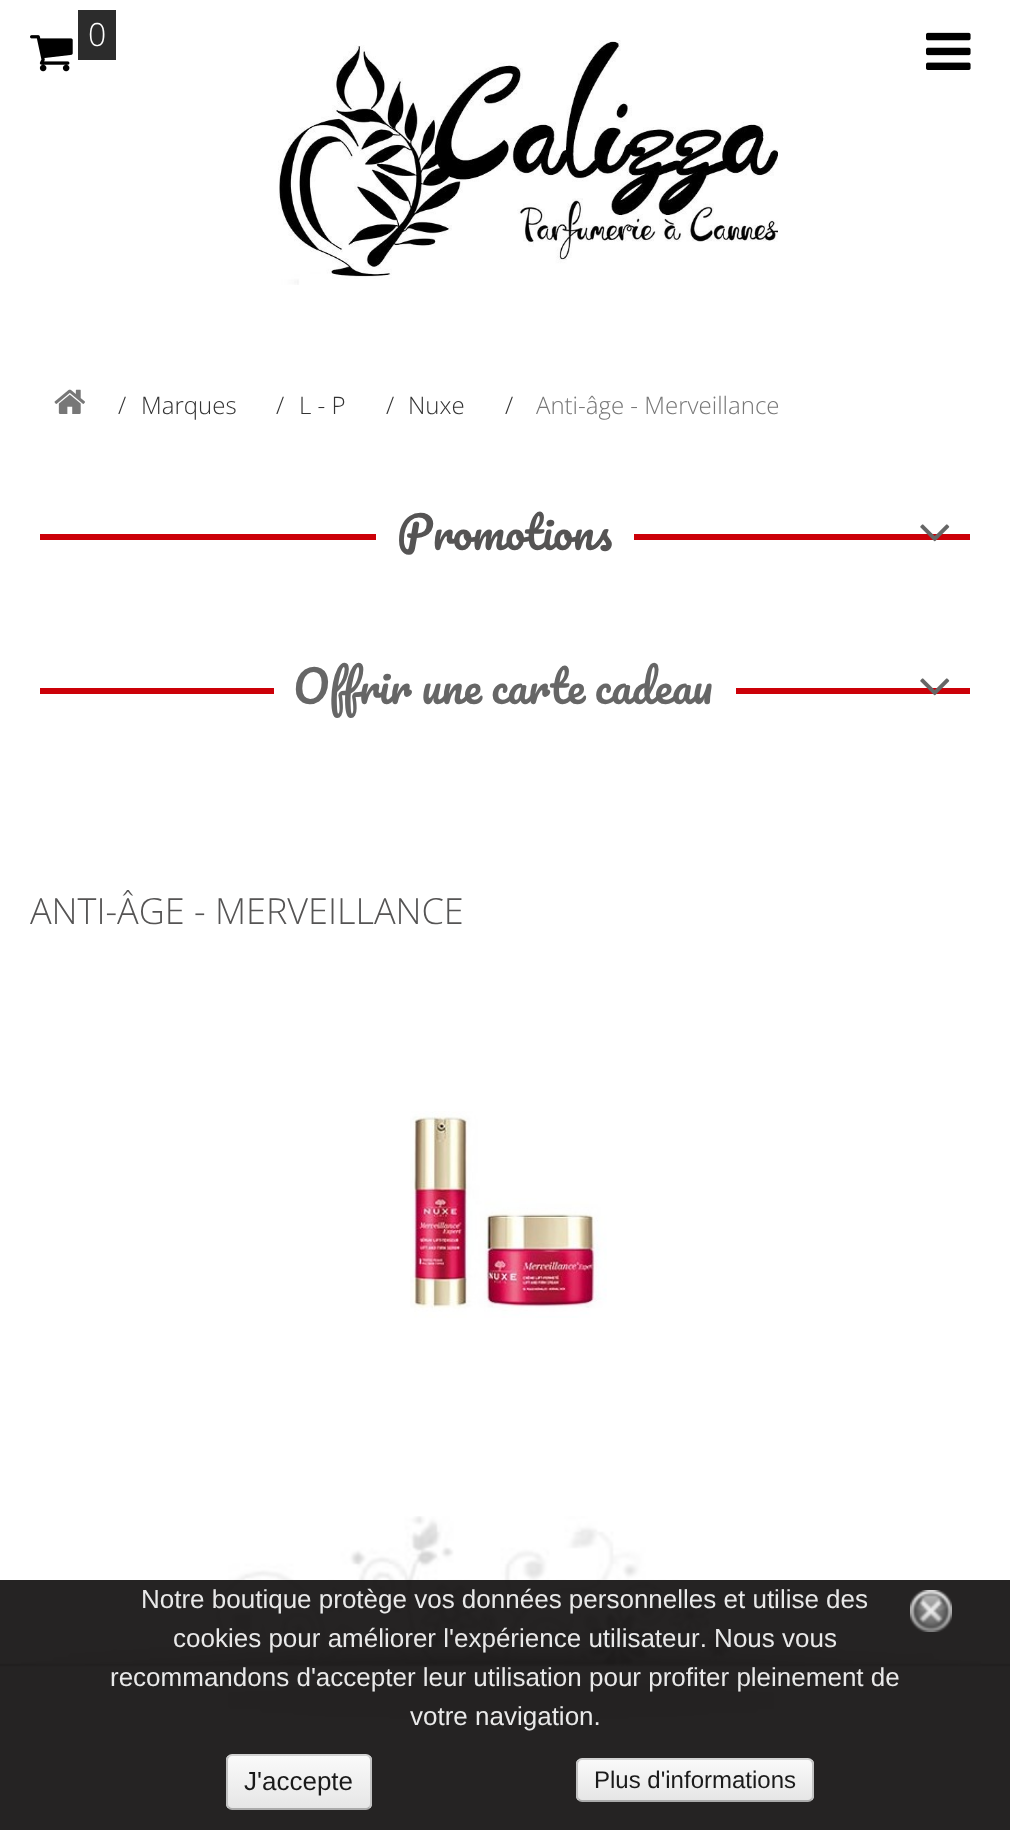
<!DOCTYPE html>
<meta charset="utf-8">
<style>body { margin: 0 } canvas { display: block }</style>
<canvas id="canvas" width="1010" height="1830"></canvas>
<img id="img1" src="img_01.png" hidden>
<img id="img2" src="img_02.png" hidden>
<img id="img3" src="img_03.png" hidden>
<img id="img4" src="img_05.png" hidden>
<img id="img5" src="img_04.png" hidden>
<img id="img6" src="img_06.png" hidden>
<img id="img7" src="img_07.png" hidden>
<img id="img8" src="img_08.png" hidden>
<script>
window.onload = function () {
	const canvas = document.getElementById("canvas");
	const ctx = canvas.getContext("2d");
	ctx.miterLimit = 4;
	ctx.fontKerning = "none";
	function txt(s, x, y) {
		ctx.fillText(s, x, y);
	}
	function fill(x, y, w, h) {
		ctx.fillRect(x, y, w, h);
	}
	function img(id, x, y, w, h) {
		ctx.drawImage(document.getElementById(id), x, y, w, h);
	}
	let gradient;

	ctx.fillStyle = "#FFFFFF";
	fill(0, 0, 1010, 1830);
	img("img1", 30, 35, 43, 37);
	ctx.fillStyle = "#2C2C2C";
	fill(78, 10, 38, 50);
	img("img2", 278, 40, 500, 245);
	img("img3", 926, 32, 45, 38);
	img("img4", 0, 1516, 1010, 215);
	ctx.fillStyle = "rgba(13, 11, 11, 0.9)";
	fill(0, 1580, 1010, 250);
	img("img5", 910, 1590, 42, 42);
	ctx.save();
	ctx.beginPath();
	ctx.roundRect(226, 1754, 146, 56, 6);
	ctx.clip();
	gradient = ctx.createLinearGradient(299, 1756, 299, 1808);
	gradient.addColorStop(0, "#FAFAFA");
	gradient.addColorStop(1, "#E6E6E6");
	ctx.fillStyle = gradient;
	fill(226, 1756, 146, 52);
	ctx.restore();
	ctx.beginPath();
	ctx.moveTo(228.5, 1756.5);
	ctx.bezierCurveTo(229.5, 1755.5, 230.5, 1755, 232, 1755);
	ctx.lineTo(366, 1755);
	ctx.bezierCurveTo(367.5, 1755, 368.5, 1755.5, 369.5, 1756.5);
	ctx.strokeStyle = "#D1D1D1";
	ctx.lineWidth = 2;
	ctx.stroke();
	ctx.beginPath();
	ctx.moveTo(369.5, 1756.5);
	ctx.bezierCurveTo(370.5, 1757.5, 371, 1758.5, 371, 1760);
	ctx.lineTo(371, 1804);
	ctx.bezierCurveTo(371, 1805.5, 370.5, 1806.5, 369.5, 1807.5);
	ctx.strokeStyle = "#C2C2C2";
	ctx.stroke();
	ctx.beginPath();
	ctx.moveTo(369.5, 1807.5);
	ctx.bezierCurveTo(368.5, 1808.5, 367.5, 1809, 366, 1809);
	ctx.lineTo(232, 1809);
	ctx.bezierCurveTo(230.5, 1809, 229.5, 1808.5, 228.5, 1807.5);
	ctx.strokeStyle = "#AAAAAA";
	ctx.stroke();
	ctx.beginPath();
	ctx.moveTo(228.5, 1807.5);
	ctx.bezierCurveTo(227.5, 1806.5, 227, 1805.5, 227, 1804);
	ctx.lineTo(227, 1760);
	ctx.bezierCurveTo(227, 1758.5, 227.5, 1757.5, 228.5, 1756.5);
	ctx.strokeStyle = "#C2C2C2";
	ctx.stroke();
	ctx.save();
	ctx.beginPath();
	ctx.roundRect(576, 1758, 238, 44, 6);
	ctx.clip();
	gradient = ctx.createLinearGradient(695, 1760, 695, 1800);
	gradient.addColorStop(0, "#FAFAFA");
	gradient.addColorStop(1, "#E6E6E6");
	ctx.fillStyle = gradient;
	fill(576, 1760, 238, 40);
	ctx.restore();
	ctx.beginPath();
	ctx.moveTo(578.5, 1760.5);
	ctx.bezierCurveTo(579.5, 1759.5, 580.5, 1759, 582, 1759);
	ctx.lineTo(808, 1759);
	ctx.bezierCurveTo(809.5, 1759, 810.5, 1759.5, 811.5, 1760.5);
	ctx.strokeStyle = "#D1D1D1";
	ctx.stroke();
	ctx.beginPath();
	ctx.moveTo(811.5, 1760.5);
	ctx.bezierCurveTo(812.5, 1761.5, 813, 1762.5, 813, 1764);
	ctx.lineTo(813, 1796);
	ctx.bezierCurveTo(813, 1797.5, 812.5, 1798.5, 811.5, 1799.5);
	ctx.strokeStyle = "#C2C2C2";
	ctx.stroke();
	ctx.beginPath();
	ctx.moveTo(811.5, 1799.5);
	ctx.bezierCurveTo(810.5, 1800.5, 809.5, 1801, 808, 1801);
	ctx.lineTo(582, 1801);
	ctx.bezierCurveTo(580.5, 1801, 579.5, 1800.5, 578.5, 1799.5);
	ctx.strokeStyle = "#AAAAAA";
	ctx.stroke();
	ctx.beginPath();
	ctx.moveTo(578.5, 1799.5);
	ctx.bezierCurveTo(577.5, 1798.5, 577, 1797.5, 577, 1796);
	ctx.lineTo(577, 1764);
	ctx.bezierCurveTo(577, 1762.5, 577.5, 1761.5, 578.5, 1760.5);
	ctx.strokeStyle = "#C2C2C2";
	ctx.stroke();
	img("img6", 54, 389, 31, 25);
	ctx.fillStyle = "#CC0008";
	fill(40, 534, 930, 6);
	ctx.fillStyle = "#FFFFFF";
	fill(376, 534, 258, 6);
	img("img7", 920, 524, 30, 18);
	ctx.fillStyle = "#CC0008";
	fill(40, 688, 930, 6);
	ctx.fillStyle = "#FFFFFF";
	fill(274, 688, 462, 6);
	img("img7", 920, 678, 30, 18);
	img("img8", 410, 1111, 197, 207);
	ctx.font = "300 32px Open Sans";
	txt("0", 88, 46);
	ctx.font = "26px Liberation Sans";
	ctx.fillStyle = "#E9E9E9";
	txt("Notre boutique protège vos données personnelles et utilise des", 141, 1608);
	txt("cookies pour améliorer l'expérience utilisateur. Nous vous", 173, 1647);
	txt("recommandons d'accepter leur utilisation pour profiter pleinement de", 110, 1686);
	txt("votre navigation.", 410, 1725);
	ctx.fillStyle = "#1A1A1A";
	txt("J'accepte", 244, 1790);
	ctx.font = "24px Liberation Sans";
	txt("Plus d'informations", 594, 1788);
	ctx.font = "300 24px Open Sans";
	ctx.fillStyle = "#333333";
	txt("/", 118, 414);
	txt("Marques", 141, 414);
	txt("/", 276, 414);
	txt("L - P", 299, 414);
	txt("/", 386, 414);
	txt("Nuxe", 408, 414);
	txt("/", 505, 414);
	ctx.fillStyle = "#777777";
	txt("Anti-âge - Merveillance", 536, 414);
	ctx.font = "44px Pacifico";
	ctx.fillStyle = "#555454";
	txt("Promotions", 397, 550);
	ctx.wordSpacing = "-2px";
	ctx.fillStyle = "#666666";
	txt("Offrir une carte cadeau", 293, 704);
	ctx.wordSpacing = "0px";
	ctx.font = "300 36px Open Sans";
	ctx.fillStyle = "#555454";
	txt("ANTI-ÂGE - MERVEILLANCE", 30, 924);
};
</script>
